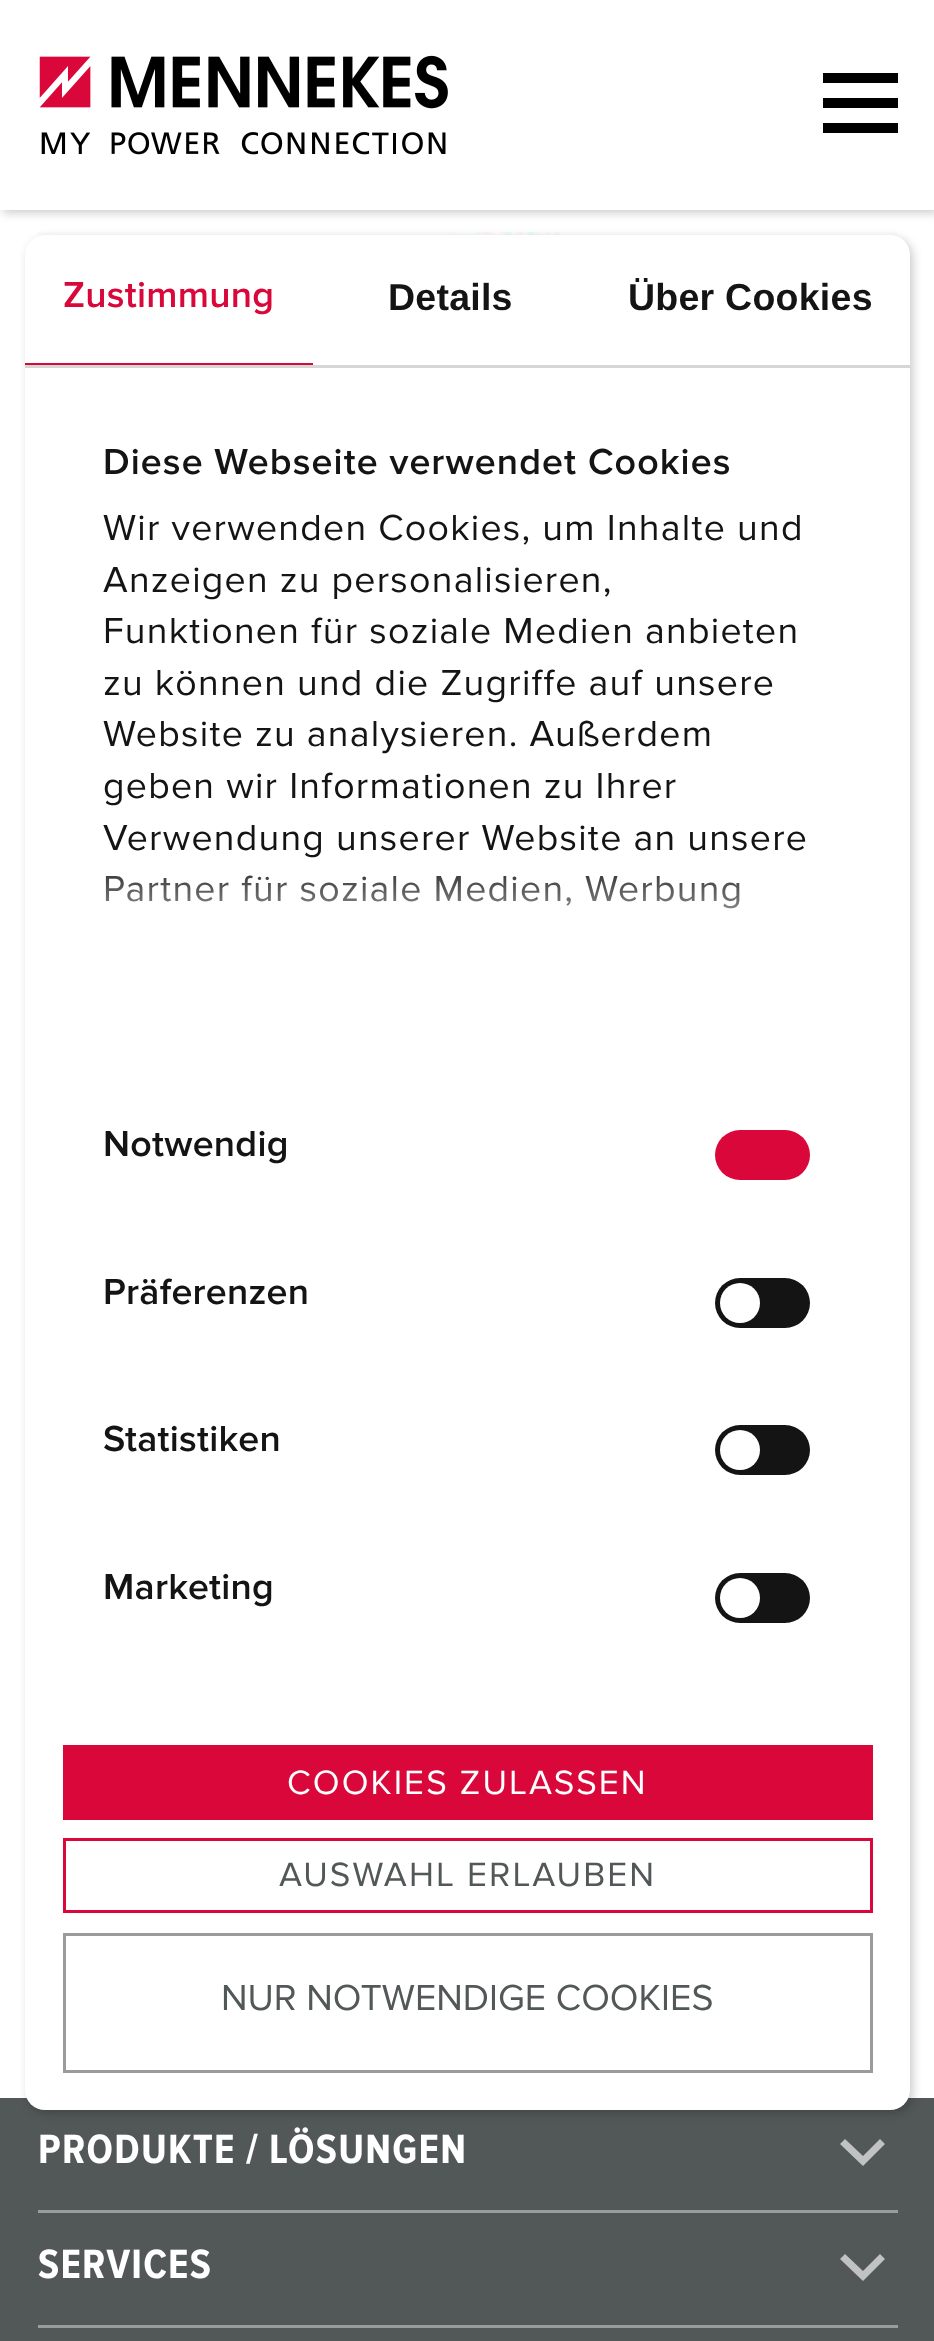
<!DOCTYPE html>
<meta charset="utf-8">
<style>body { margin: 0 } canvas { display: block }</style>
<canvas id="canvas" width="934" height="2341"></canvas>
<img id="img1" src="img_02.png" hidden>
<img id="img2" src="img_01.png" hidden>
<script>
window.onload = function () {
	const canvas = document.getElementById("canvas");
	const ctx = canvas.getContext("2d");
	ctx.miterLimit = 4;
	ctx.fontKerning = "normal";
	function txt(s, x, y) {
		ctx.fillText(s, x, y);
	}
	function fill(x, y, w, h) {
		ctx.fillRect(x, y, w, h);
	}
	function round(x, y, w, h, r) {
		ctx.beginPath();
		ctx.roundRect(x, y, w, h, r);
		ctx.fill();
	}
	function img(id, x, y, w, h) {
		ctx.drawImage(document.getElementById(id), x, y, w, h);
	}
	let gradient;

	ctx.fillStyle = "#FFFFFF";
	fill(0, 0, 934, 2341);
	img("img1", 37, 232, 861, 5);
	ctx.fillStyle = "#525758";
	fill(0, 2098, 934, 243);
	ctx.fillStyle = "rgba(0, 0, 0, 0.2)";
	ctx.filter = "blur(5px)";
	ctx.beginPath();
	ctx.roundRect(28, 238, 885, 1875, 20);
	ctx.fill();
	ctx.filter = "none";
	ctx.fillStyle = "#FFFFFF";
	round(25, 235, 885, 1875, 20);
	ctx.fillStyle = "#D6D6D6";
	fill(25, 365, 885, 3);
	ctx.fillStyle = "#D9073A";
	fill(25, 363, 288, 2);
	round(715, 1130, 95, 50, 25);
	ctx.fillStyle = "#141414";
	round(715, 1278, 95, 50, 25);
	ctx.fillStyle = "#FFFFFF";
	ctx.beginPath();
	ctx.arc(740, 1303, 20, 0, Math.PI * 2);
	ctx.fill();
	ctx.fillStyle = "#141414";
	round(715, 1425, 95, 50, 25);
	ctx.fillStyle = "#FFFFFF";
	ctx.beginPath();
	ctx.arc(740, 1450, 20, 0, Math.PI * 2);
	ctx.fill();
	ctx.fillStyle = "#141414";
	round(715, 1573, 95, 50, 25);
	ctx.fillStyle = "#FFFFFF";
	ctx.beginPath();
	ctx.arc(740, 1598, 20, 0, Math.PI * 2);
	ctx.fill();
	ctx.fillStyle = "#D9073A";
	fill(63, 1745, 810, 75);
	ctx.strokeStyle = "#D9073A";
	ctx.lineWidth = 3;
	ctx.strokeRect(64.5, 1839.5, 807, 72);
	ctx.strokeStyle = "#999B9C";
	ctx.strokeRect(64.5, 1934.5, 807, 137);
	ctx.fillStyle = "rgba(0, 0, 0, 0.2)";
	ctx.filter = "blur(5px)";
	ctx.beginPath();
	ctx.rect(3, 3, 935, 210);
	ctx.fill();
	ctx.filter = "none";
	ctx.fillStyle = "#FFFFFF";
	fill(0, 0, 934, 210);
	img("img2", 39, 55, 409, 100);
	ctx.fillStyle = "#000000";
	fill(823, 98, 75, 10);
	fill(823, 73, 75, 10);
	fill(823, 123, 75, 10);
	ctx.fillStyle = "#999B9C";
	fill(38, 2210, 860, 3);
	ctx.fillStyle = "#C1C2C3";
	ctx.beginPath();
	ctx.moveTo(885, 2144);
	ctx.lineTo(880, 2139);
	ctx.lineTo(863, 2156);
	ctx.lineTo(845, 2139);
	ctx.lineTo(840, 2144);
	ctx.lineTo(863, 2166);
	ctx.closePath();
	ctx.fill();
	ctx.fillStyle = "#999B9C";
	fill(38, 2325, 860, 3);
	ctx.fillStyle = "#C1C2C3";
	ctx.beginPath();
	ctx.moveTo(885, 2259);
	ctx.lineTo(880, 2254);
	ctx.lineTo(863, 2271);
	ctx.lineTo(845, 2254);
	ctx.lineTo(840, 2259);
	ctx.lineTo(863, 2281);
	ctx.closePath();
	ctx.fill();
	ctx.letterSpacing = "0.25px";
	ctx.font = "600 37.5px Proxima Nova";
	ctx.fillStyle = "#D9073A";
	txt("Zustimmung", 63, 307);
	ctx.font = "bold 37.5px Liberation Sans";
	ctx.fillStyle = "#141414";
	txt("Details", 388, 310);
	txt("Über Cookies", 628, 310);
	ctx.letterSpacing = "1.1px";
	ctx.font = "600 37.5px Proxima Nova";
	txt("Diese Webseite verwendet Cookies", 103, 474);
	ctx.letterSpacing = "1.25px";
	ctx.font = "37.5px Proxima Nova";
	txt("Wir verwenden Cookies, um Inhalte und", 103, 540);
	txt("Anzeigen zu personalisieren,", 103, 592);
	txt("Funktionen für soziale Medien anbieten", 103, 643);
	txt("zu können und die Zugriffe auf unsere", 103, 695);
	txt("Website zu analysieren. Außerdem", 103, 746);
	txt("geben wir Informationen zu Ihrer", 103, 798);
	txt("Verwendung unserer Website an unsere", 103, 850);
	txt("Partner für soziale Medien, Werbung", 103, 901);
	gradient = ctx.createLinearGradient(440, 1041, 440, 854);
	gradient.addColorStop(0, "#FFFFFF");
	gradient.addColorStop(0.5, "rgba(255, 255, 255, 0.8)");
	gradient.addColorStop(1, "rgba(255, 255, 255, 0)");
	ctx.fillStyle = gradient;
	fill(105, 875, 634, 34);
	ctx.letterSpacing = "0.25px";
	ctx.font = "600 37.5px Proxima Nova";
	ctx.fillStyle = "#141414";
	txt("Notwendig", 103, 1156);
	txt("Präferenzen", 103, 1304);
	txt("Statistiken", 103, 1451);
	txt("Marketing", 103, 1599);
	ctx.letterSpacing = "2.1px";
	ctx.font = "35px Proxima Nova";
	ctx.fillStyle = "#FFFFFF";
	txt("COOKIES ZULASSEN", 287, 1794);
	ctx.fillStyle = "#525758";
	txt("AUSWAHL ERLAUBEN", 279, 1886);
	ctx.letterSpacing = "0px";
	ctx.font = "37.5px Proxima Nova";
	txt("NUR NOTWENDIGE COOKIES", 221, 2010);
	ctx.letterSpacing = "1.25px";
	ctx.font = "bold 42.5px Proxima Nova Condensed";
	ctx.fillStyle = "#FFFFFF";
	txt("PRODUKTE / LÖSUNGEN", 38, 2163);
	txt("SERVICES", 38, 2278);
};
</script>
